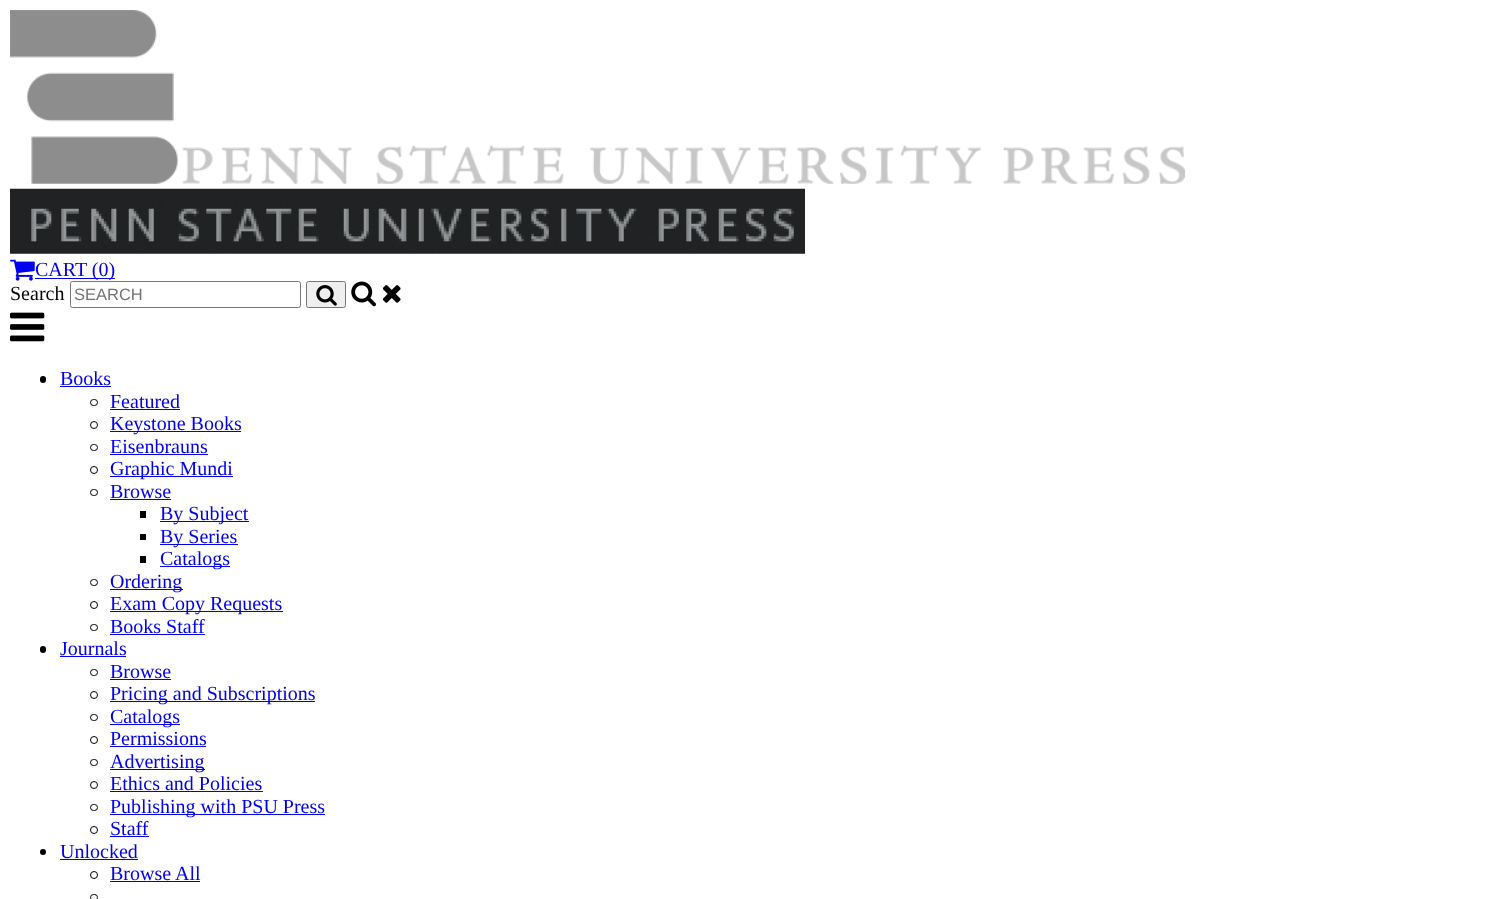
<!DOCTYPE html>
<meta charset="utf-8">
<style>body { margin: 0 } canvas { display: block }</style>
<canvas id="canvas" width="1512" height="899"></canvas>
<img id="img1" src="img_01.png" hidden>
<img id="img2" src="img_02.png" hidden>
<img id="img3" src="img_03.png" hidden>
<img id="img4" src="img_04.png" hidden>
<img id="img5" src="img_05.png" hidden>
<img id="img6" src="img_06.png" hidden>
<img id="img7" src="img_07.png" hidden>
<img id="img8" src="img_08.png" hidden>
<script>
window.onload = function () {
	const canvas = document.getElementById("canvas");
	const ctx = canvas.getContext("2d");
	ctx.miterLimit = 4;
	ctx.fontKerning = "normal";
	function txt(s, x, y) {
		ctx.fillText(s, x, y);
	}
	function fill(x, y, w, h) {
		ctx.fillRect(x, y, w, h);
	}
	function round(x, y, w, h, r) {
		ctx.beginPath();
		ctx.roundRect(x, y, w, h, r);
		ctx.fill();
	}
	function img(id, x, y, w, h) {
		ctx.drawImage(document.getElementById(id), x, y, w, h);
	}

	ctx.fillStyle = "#FFFFFF";
	fill(0, 0, 1512, 899);
	img("img1", 10, 10, 168, 174);
	img("img2", 182, 145, 1003, 39);
	img("img3", 10, 188, 795, 66);
	img("img4", 10, 259, 25, 22);
	ctx.fillStyle = "#0000EE";
	fill(35, 278, 80, 1);
	ctx.beginPath();
	ctx.roundRect(70.5, 281.5, 230, 26, 2);
	ctx.strokeStyle = "#767676";
	ctx.stroke();
	ctx.fillStyle = "#EFEFEF";
	ctx.beginPath();
	ctx.roundRect(306.5, 281.5, 39, 26, 2);
	ctx.fill();
	ctx.stroke();
	img("img5", 316, 285, 21, 21);
	img("img6", 351, 281, 25, 26);
	img("img7", 382, 285, 19, 18);
	img("img8", 10, 312, 35, 30);
	ctx.fillStyle = "#000000";
	round(40, 376, 6, 7, 3);
	ctx.fillStyle = "#0000EE";
	fill(60, 386, 51, 1);
	ctx.beginPath();
	ctx.roundRect(90.5, 399.5, 7, 6, 3);
	ctx.strokeStyle = "#000000";
	ctx.stroke();
	fill(110, 409, 70, 1);
	ctx.beginPath();
	ctx.arc(94, 425, 3.5, 0, Math.PI * 2);
	ctx.stroke();
	fill(110, 431, 131, 1);
	ctx.beginPath();
	ctx.roundRect(90.5, 444.5, 7, 6, 3);
	ctx.stroke();
	fill(110, 454, 98, 1);
	ctx.beginPath();
	ctx.arc(94, 470, 3.5, 0, Math.PI * 2);
	ctx.stroke();
	fill(110, 476, 123, 1);
	ctx.beginPath();
	ctx.roundRect(90.5, 489.5, 7, 6, 3);
	ctx.stroke();
	fill(110, 499, 61, 1);
	ctx.fillStyle = "#000000";
	fill(140, 511, 6, 7);
	ctx.fillStyle = "#0000EE";
	fill(160, 521, 89, 1);
	ctx.fillStyle = "#000000";
	fill(140, 534, 6, 6);
	ctx.fillStyle = "#0000EE";
	fill(160, 544, 78, 1);
	ctx.fillStyle = "#000000";
	fill(140, 556, 6, 7);
	ctx.fillStyle = "#0000EE";
	fill(160, 566, 70, 1);
	ctx.beginPath();
	ctx.roundRect(90.5, 579.5, 7, 6, 3);
	ctx.stroke();
	fill(110, 589, 73, 1);
	ctx.beginPath();
	ctx.arc(94, 605, 3.5, 0, Math.PI * 2);
	ctx.stroke();
	fill(110, 611, 173, 1);
	ctx.beginPath();
	ctx.roundRect(90.5, 624.5, 7, 6, 3);
	ctx.stroke();
	fill(110, 634, 95, 1);
	ctx.fillStyle = "#000000";
	round(40, 646, 6, 7, 3);
	ctx.fillStyle = "#0000EE";
	fill(60, 656, 66, 1);
	ctx.beginPath();
	ctx.roundRect(90.5, 669.5, 7, 6, 3);
	ctx.stroke();
	fill(110, 679, 61, 1);
	ctx.beginPath();
	ctx.arc(94, 695, 3.5, 0, Math.PI * 2);
	ctx.stroke();
	fill(110, 701, 205, 1);
	ctx.beginPath();
	ctx.roundRect(90.5, 714.5, 7, 6, 3);
	ctx.stroke();
	fill(110, 724, 70, 1);
	ctx.beginPath();
	ctx.arc(94, 740, 3.5, 0, Math.PI * 2);
	ctx.stroke();
	fill(110, 746, 96, 1);
	ctx.beginPath();
	ctx.roundRect(90.5, 759.5, 7, 6, 3);
	ctx.stroke();
	fill(110, 769, 95, 1);
	ctx.beginPath();
	ctx.arc(94, 785, 3.5, 0, Math.PI * 2);
	ctx.stroke();
	fill(110, 791, 153, 1);
	ctx.beginPath();
	ctx.roundRect(90.5, 804.5, 7, 6, 3);
	ctx.stroke();
	fill(110, 814, 215, 1);
	ctx.beginPath();
	ctx.arc(94, 830, 3.5, 0, Math.PI * 2);
	ctx.stroke();
	fill(110, 836, 39, 1);
	ctx.fillStyle = "#000000";
	ctx.beginPath();
	ctx.arc(43, 852, 3, 0, Math.PI * 2);
	ctx.fill();
	ctx.fillStyle = "#0000EE";
	fill(60, 859, 78, 1);
	ctx.beginPath();
	ctx.arc(94, 875, 3.5, 0, Math.PI * 2);
	ctx.stroke();
	fill(110, 881, 90, 1);
	ctx.beginPath();
	ctx.roundRect(90.5, 894.5, 7, 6, 3);
	ctx.stroke();
	ctx.font = "20px Liberation Serif";
	txt("CART (0)", 35, 276);
	ctx.fillStyle = "#000000";
	txt("Search", 10, 300);
	ctx.font = "16.5px Liberation Sans";
	ctx.fillStyle = "#757575";
	txt("SEARCH", 74, 300);
	ctx.font = "20px Liberation Serif";
	ctx.fillStyle = "#0000EE";
	txt("Books", 60, 385);
	txt("Featured", 110, 408);
	txt("Keystone Books", 110, 430);
	txt("Eisenbrauns", 110, 453);
	txt("Graphic Mundi", 110, 475);
	txt("Browse", 110, 498);
	txt("By Subject", 160, 520);
	txt("By Series", 160, 543);
	txt("Catalogs", 160, 565);
	txt("Ordering", 110, 588);
	txt("Exam Copy Requests", 110, 610);
	txt("Books Staff", 110, 633);
	txt("Journals", 60, 655);
	txt("Browse", 110, 678);
	txt("Pricing and Subscriptions", 110, 700);
	txt("Catalogs", 110, 723);
	txt("Permissions", 110, 745);
	txt("Advertising", 110, 768);
	txt("Ethics and Policies", 110, 790);
	txt("Publishing with PSU Press", 110, 813);
	txt("Staff", 110, 835);
	txt("Unlocked", 60, 858);
	txt("Browse All", 110, 880);
};
</script>
